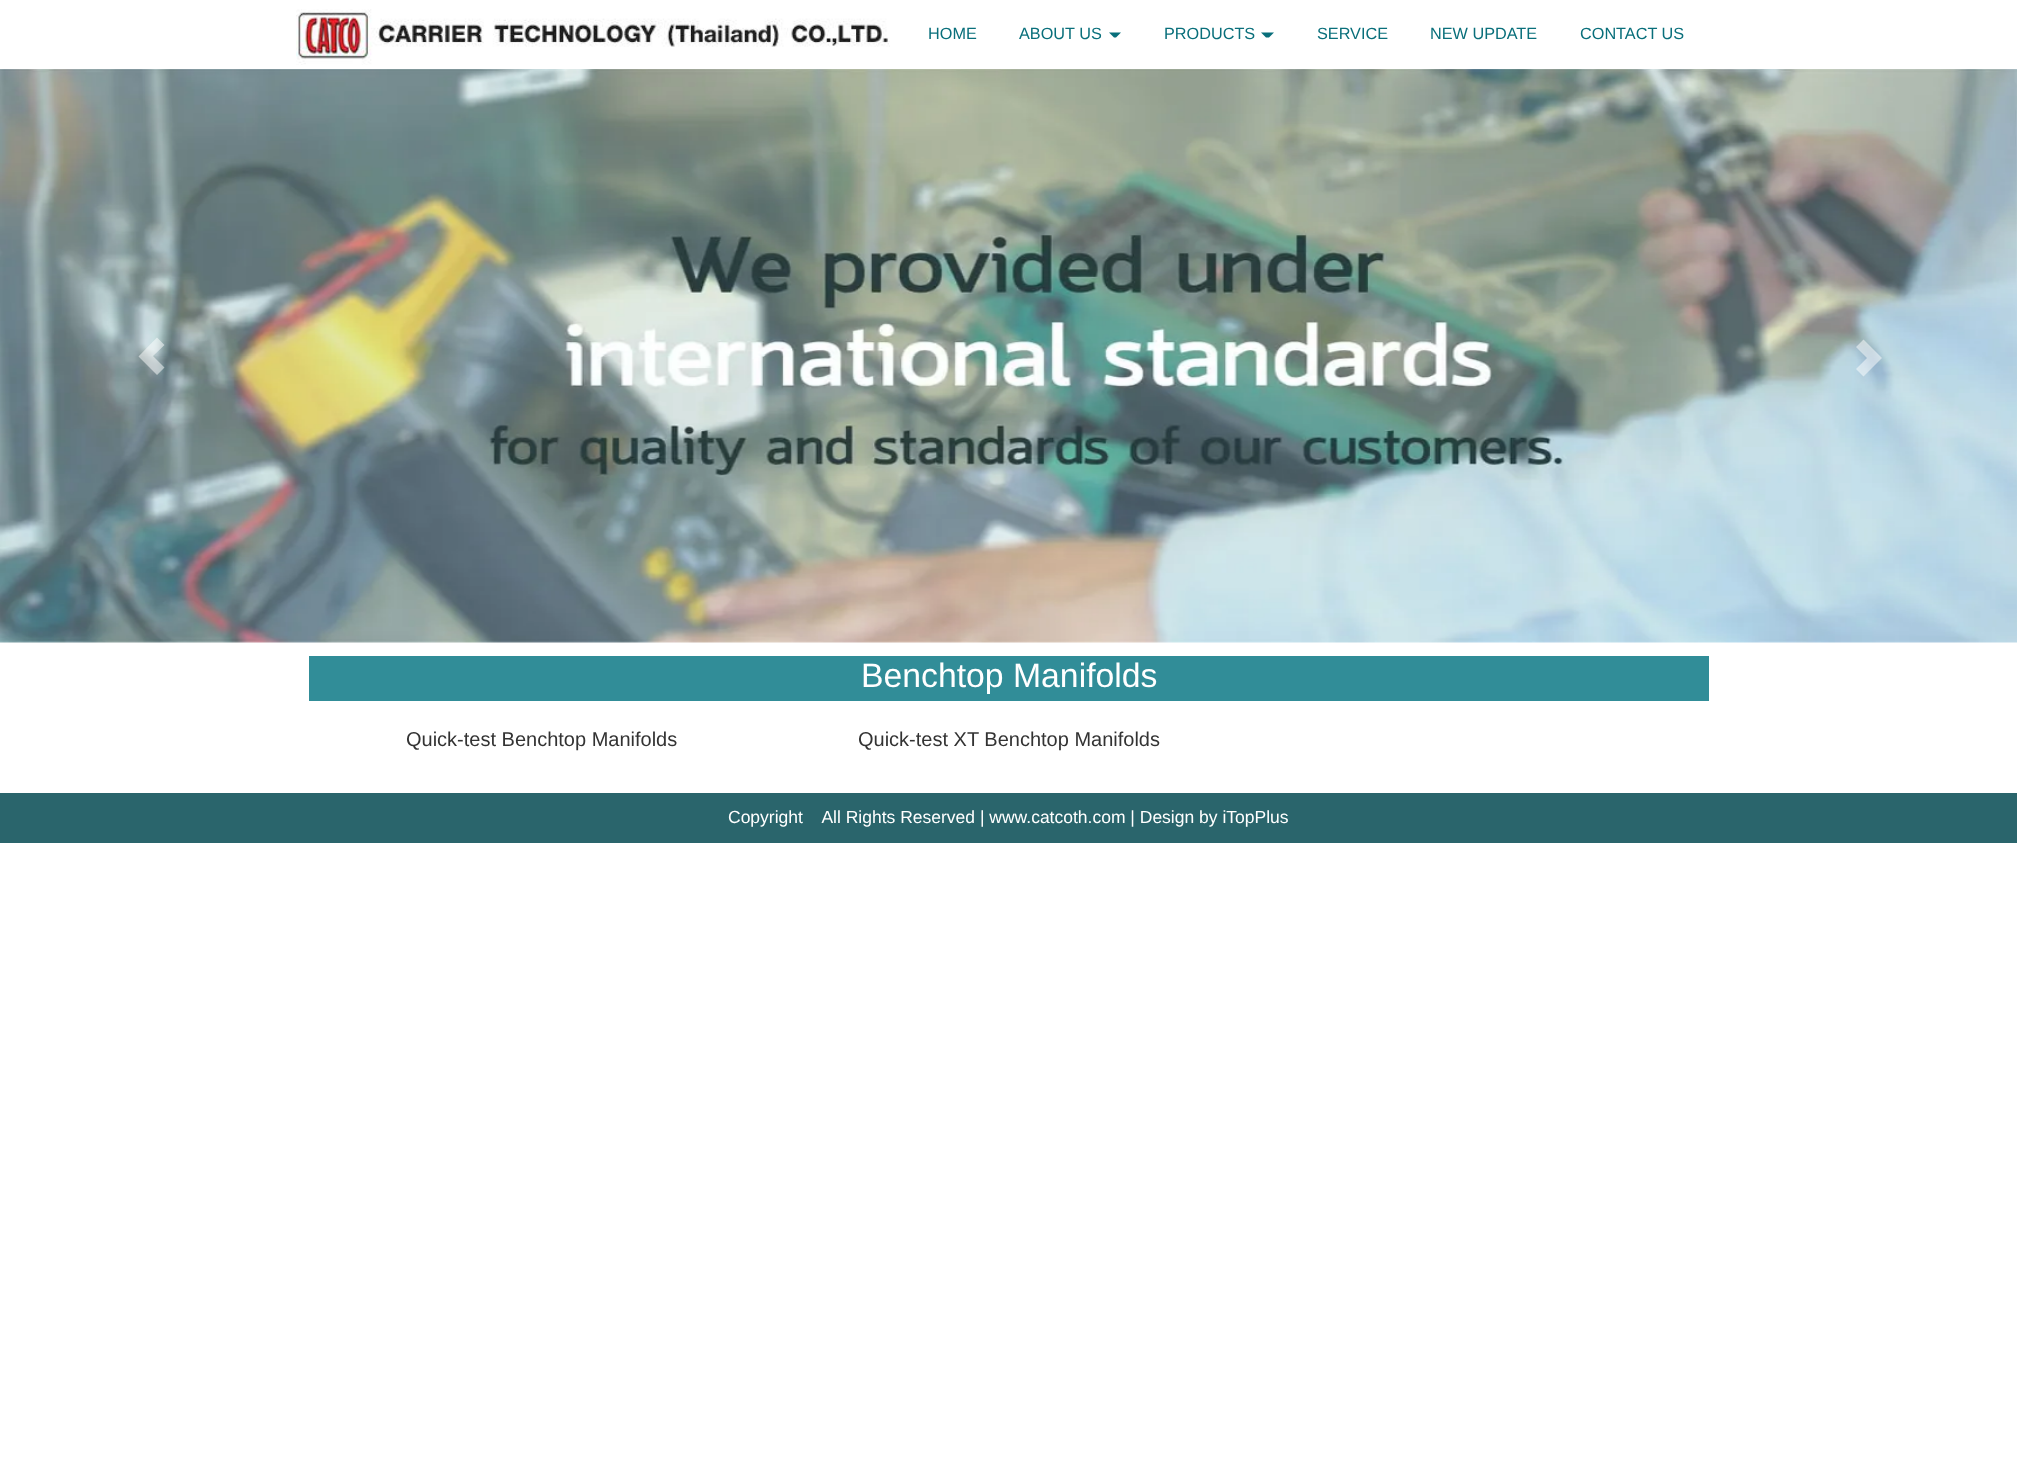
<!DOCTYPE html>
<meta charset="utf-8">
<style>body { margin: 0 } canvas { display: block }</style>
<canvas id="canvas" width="2017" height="1464"></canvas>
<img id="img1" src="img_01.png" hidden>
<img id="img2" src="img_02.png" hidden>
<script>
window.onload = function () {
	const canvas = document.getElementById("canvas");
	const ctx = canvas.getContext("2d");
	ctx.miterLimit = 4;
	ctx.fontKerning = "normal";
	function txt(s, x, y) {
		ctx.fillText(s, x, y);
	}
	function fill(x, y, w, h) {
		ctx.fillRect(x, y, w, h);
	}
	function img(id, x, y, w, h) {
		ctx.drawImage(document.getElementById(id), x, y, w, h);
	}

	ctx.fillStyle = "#FFFFFF";
	fill(0, 0, 2017, 1464);
	img("img1", 296, 9, 594, 56);
	ctx.fillStyle = "#096F7B";
	ctx.beginPath();
	ctx.moveTo(1109, 32.5);
	ctx.lineTo(1121, 32.5);
	ctx.lineTo(1116, 37.5);
	ctx.lineTo(1114, 37.5);
	ctx.closePath();
	ctx.fill();
	ctx.beginPath();
	ctx.moveTo(1261, 32.5);
	ctx.lineTo(1274, 32.5);
	ctx.lineTo(1269, 37.5);
	ctx.lineTo(1266, 37.5);
	ctx.closePath();
	ctx.fill();
	img("img2", 0, 69, 2017, 574);
	ctx.fillStyle = "rgba(255, 255, 255, 0.5)";
	ctx.beginPath();
	ctx.moveTo(138.5, 356.5);
	ctx.lineTo(157, 375);
	ctx.lineTo(164.5, 367.5);
	ctx.lineTo(153, 356);
	ctx.lineTo(164.5, 345);
	ctx.lineTo(157, 337.5);
	ctx.closePath();
	ctx.fill();
	ctx.beginPath();
	ctx.moveTo(1856, 369);
	ctx.lineTo(1867, 358);
	ctx.lineTo(1856, 347);
	ctx.lineTo(1863.5, 339.5);
	ctx.lineTo(1882, 358);
	ctx.lineTo(1863.5, 376.5);
	ctx.closePath();
	ctx.fill();
	ctx.fillStyle = "#318D98";
	fill(309, 656, 1400, 45);
	ctx.fillStyle = "#2A656C";
	fill(0, 793, 2017, 50);
	ctx.font = "16.25px Liberation Sans";
	ctx.fillStyle = "#096F7B";
	txt("HOME", 928, 39);
	txt("ABOUT US", 1019, 39);
	txt("PRODUCTS", 1164, 39);
	txt("SERVICE", 1317, 39);
	txt("NEW UPDATE", 1430, 39);
	txt("CONTACT US", 1580, 39);
	ctx.font = "33.75px Liberation Sans";
	ctx.fillStyle = "#FFFFFF";
	txt("Benchtop Manifolds", 861, 687);
	ctx.font = "20px Liberation Sans";
	ctx.fillStyle = "#333333";
	txt("Quick-test Benchtop Manifolds", 406, 746);
	txt("Quick-test XT Benchtop Manifolds", 858, 746);
	ctx.font = "17.5px Liberation Sans";
	ctx.fillStyle = "#FFFFFF";
	txt("Copyright    All Rights Reserved | www.catcoth.com | Design by iTopPlus", 728, 823);
};
</script>
